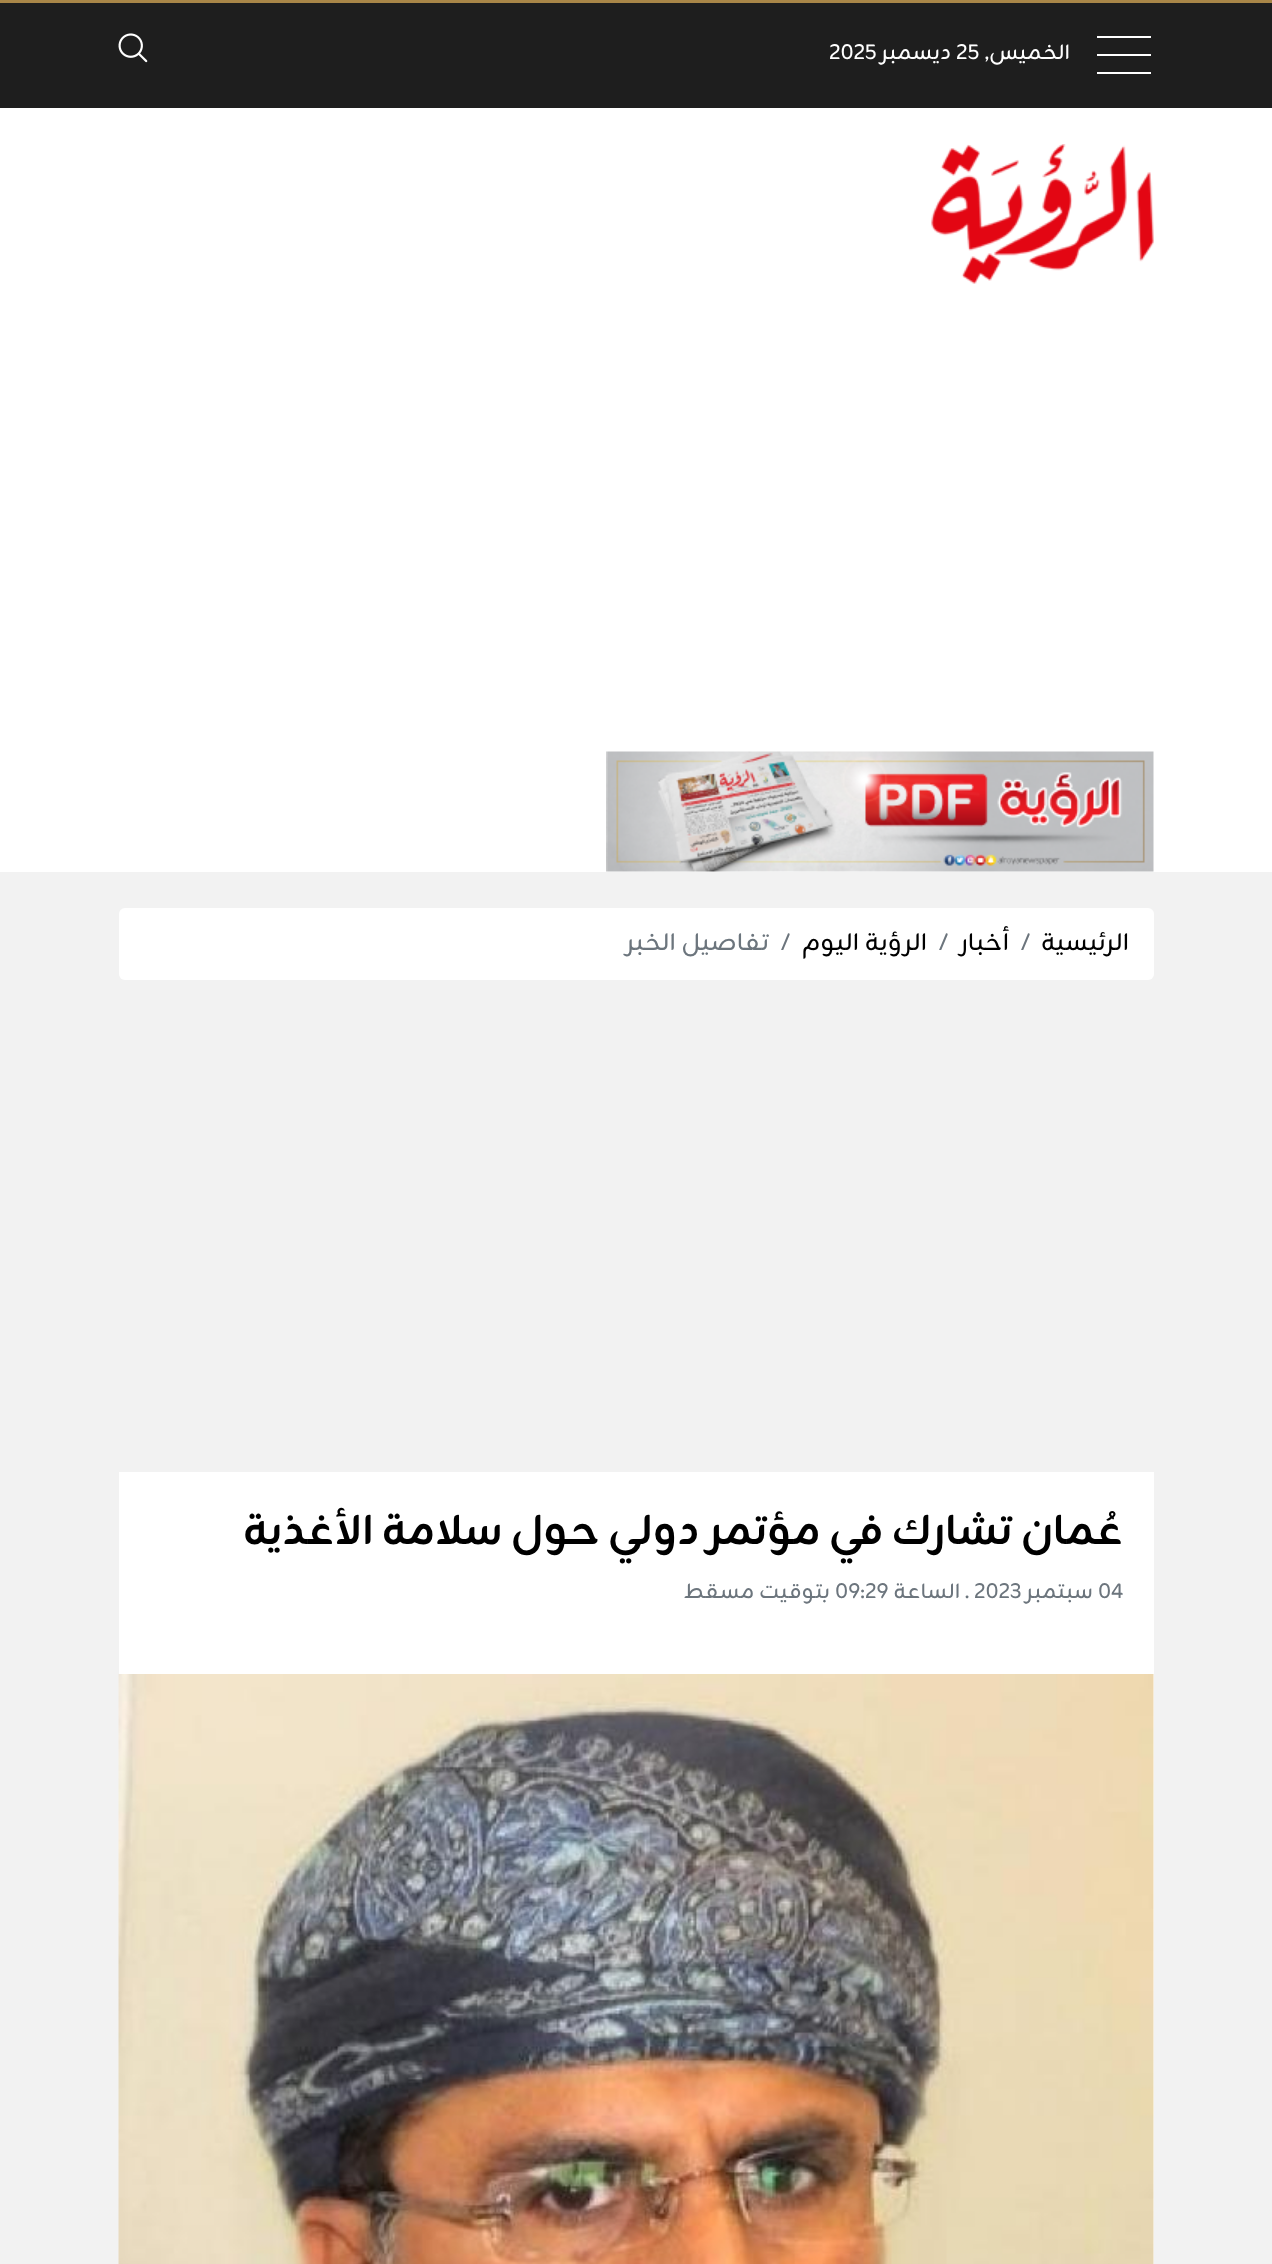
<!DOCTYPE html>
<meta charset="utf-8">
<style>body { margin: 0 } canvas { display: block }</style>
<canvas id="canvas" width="1272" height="2264"></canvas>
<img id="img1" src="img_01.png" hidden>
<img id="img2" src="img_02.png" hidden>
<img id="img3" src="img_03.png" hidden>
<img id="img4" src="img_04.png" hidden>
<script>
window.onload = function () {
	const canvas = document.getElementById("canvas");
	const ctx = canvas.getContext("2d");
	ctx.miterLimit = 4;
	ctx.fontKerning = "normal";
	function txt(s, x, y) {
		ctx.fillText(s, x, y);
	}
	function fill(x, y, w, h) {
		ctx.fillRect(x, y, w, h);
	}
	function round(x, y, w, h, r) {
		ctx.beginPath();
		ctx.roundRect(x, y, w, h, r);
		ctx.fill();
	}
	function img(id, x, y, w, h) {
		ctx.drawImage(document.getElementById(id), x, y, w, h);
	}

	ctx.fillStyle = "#F2F2F2";
	fill(0, 0, 1272, 2264);
	ctx.fillStyle = "#1E1E1E";
	fill(0, 3, 1272, 105);
	ctx.fillStyle = "#A98648";
	fill(0, 0, 1272, 3);
	ctx.fillStyle = "#FFFFFF";
	fill(1097, 54, 54, 2);
	fill(1097, 36, 54, 2);
	fill(1097, 72, 54, 2);
	img("img1", 118, 33, 30, 30);
	fill(0, 108, 1272, 764);
	img("img2", 931, 144, 223, 140);
	img("img3", 606, 751, 548, 121);
	round(119, 908, 1035, 72, 6);
	fill(119, 1472, 1035, 792);
	img("img4", 118, 1674, 1036, 590);
	ctx.direction = "rtl";
	ctx.font = "21px Zain";
	txt("الخميس,", 1070, 59);
	ctx.direction = "ltr";
	txt("25", 956, 59);
	ctx.direction = "rtl";
	txt("ديسمبر", 951, 59);
	ctx.direction = "ltr";
	txt("2025", 829, 59);
	ctx.direction = "rtl";
	ctx.font = "24px Zain";
	ctx.fillStyle = "#000000";
	txt("الرئيسية", 1129, 950);
	ctx.direction = "ltr";
	ctx.fillStyle = "#6C757D";
	txt("/", 1021, 950);
	ctx.direction = "rtl";
	ctx.fillStyle = "#000000";
	txt("أخبار", 1009, 950);
	ctx.direction = "ltr";
	ctx.fillStyle = "#6C757D";
	txt("/", 939, 950);
	ctx.direction = "rtl";
	ctx.fillStyle = "#000000";
	txt("الرؤية اليوم", 927, 950);
	ctx.direction = "ltr";
	ctx.fillStyle = "#6C757D";
	txt("/", 781, 950);
	ctx.direction = "rtl";
	txt("تفاصيل الخبر", 769, 950);
	ctx.font = "bold 42px Zain";
	ctx.fillStyle = "#000000";
	txt("عُمان تشارك في مؤتمر دولي حول سلامة الأغذية", 1123, 1544);
	ctx.direction = "ltr";
	ctx.font = "21px Zain";
	ctx.fillStyle = "#6C757D";
	txt("04", 1098, 1598);
	ctx.direction = "rtl";
	txt("سبتمبر", 1093, 1598);
	ctx.direction = "ltr";
	txt("2023", 974, 1598);
	ctx.direction = "rtl";
	txt(". الساعة", 969, 1598);
	ctx.direction = "ltr";
	txt("09:29", 835, 1598);
	ctx.direction = "rtl";
	txt("بتوقيت مسقط", 830, 1598);
};
</script>
